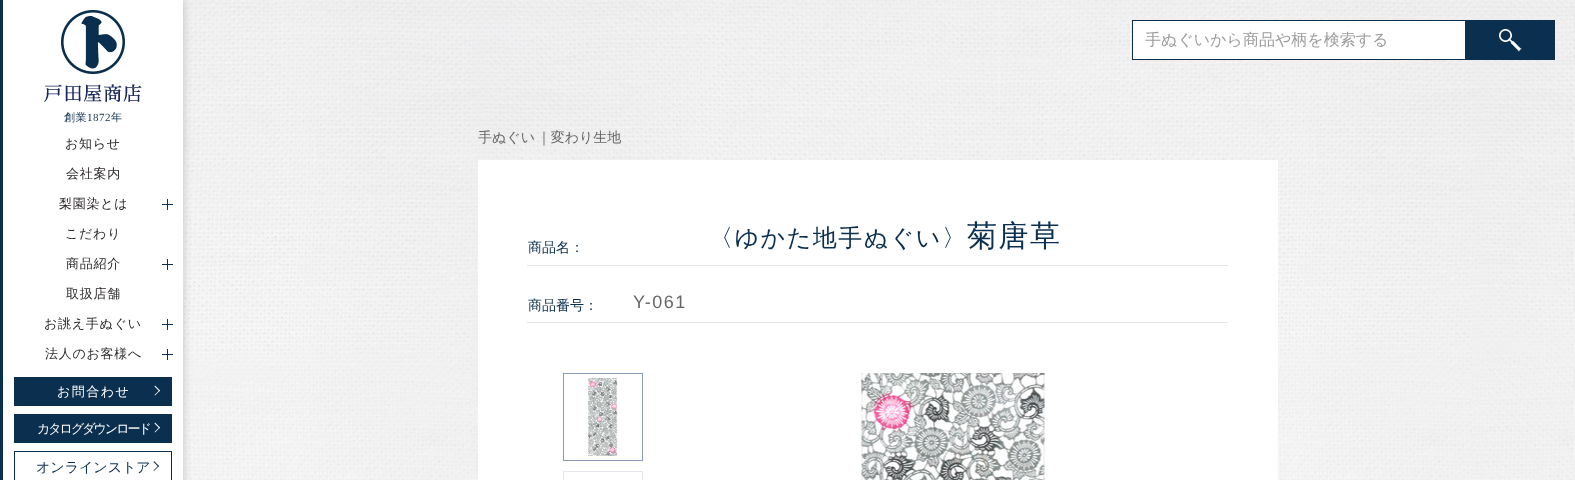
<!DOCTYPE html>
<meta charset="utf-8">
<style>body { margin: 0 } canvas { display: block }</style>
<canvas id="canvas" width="1575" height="480"></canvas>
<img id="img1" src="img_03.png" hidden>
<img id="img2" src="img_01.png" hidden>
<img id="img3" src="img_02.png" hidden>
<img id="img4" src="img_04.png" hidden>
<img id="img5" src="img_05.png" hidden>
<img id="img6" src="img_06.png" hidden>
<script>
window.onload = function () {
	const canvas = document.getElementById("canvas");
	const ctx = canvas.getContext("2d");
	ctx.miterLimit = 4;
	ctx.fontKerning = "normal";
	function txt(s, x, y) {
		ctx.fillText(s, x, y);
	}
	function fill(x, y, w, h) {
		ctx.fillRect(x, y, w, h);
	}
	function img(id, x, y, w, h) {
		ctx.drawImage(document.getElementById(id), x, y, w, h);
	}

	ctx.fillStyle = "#FFFFFF";
	fill(0, 0, 1575, 480);
	img("img1", 183, 0, 1392, 480);
	ctx.fillStyle = "rgba(0, 0, 0, 0.2)";
	ctx.filter = "blur(5px)";
	ctx.beginPath();
	ctx.rect(0, 0, 183, 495);
	ctx.fill();
	ctx.filter = "none";
	ctx.fillStyle = "#FFFFFF";
	fill(3, 0, 180, 480);
	ctx.fillStyle = "#0B2F4F";
	fill(0, 0, 3, 480);
	img("img2", 61, 10, 64, 64);
	img("img3", 44, 84, 98, 18);
	fill(162, 204, 11, 1);
	fill(167, 199, 1, 11);
	fill(162, 264, 11, 1);
	fill(167, 259, 1, 11);
	fill(162, 324, 11, 1);
	fill(167, 319, 1, 11);
	fill(162, 354, 11, 1);
	fill(167, 349, 1, 11);
	fill(14, 377, 158, 29);
	ctx.fillStyle = "#FFFFFF";
	ctx.beginPath();
	ctx.moveTo(155, 385.5);
	ctx.lineTo(160, 390.5);
	ctx.lineTo(159.5, 391.5);
	ctx.lineTo(154.5, 386.5);
	ctx.closePath();
	ctx.fill();
	ctx.beginPath();
	ctx.moveTo(159.5, 390);
	ctx.lineTo(160, 390.5);
	ctx.lineTo(155, 395.5);
	ctx.lineTo(154.5, 395);
	ctx.closePath();
	ctx.fill();
	ctx.fillStyle = "#0B2F4F";
	fill(14, 414, 158, 29);
	ctx.fillStyle = "#FFFFFF";
	ctx.beginPath();
	ctx.moveTo(155, 422.5);
	ctx.lineTo(160, 427.5);
	ctx.lineTo(159.5, 428.5);
	ctx.lineTo(154.5, 423.5);
	ctx.closePath();
	ctx.fill();
	ctx.beginPath();
	ctx.moveTo(159.5, 427);
	ctx.lineTo(160, 427.5);
	ctx.lineTo(155, 432.5);
	ctx.lineTo(154.5, 432);
	ctx.closePath();
	ctx.fill();
	ctx.strokeStyle = "#0B2F4F";
	ctx.strokeRect(14.5, 451.5, 157, 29);
	ctx.fillStyle = "#0B2F4F";
	ctx.beginPath();
	ctx.moveTo(154, 461);
	ctx.lineTo(159, 466);
	ctx.lineTo(158.5, 467);
	ctx.lineTo(153.5, 462);
	ctx.closePath();
	ctx.fill();
	ctx.beginPath();
	ctx.moveTo(158.5, 465.5);
	ctx.lineTo(159, 466);
	ctx.lineTo(154, 471);
	ctx.lineTo(153.5, 470.5);
	ctx.closePath();
	ctx.fill();
	ctx.fillStyle = "#FFFFFF";
	fill(1133, 21, 332, 38);
	ctx.strokeRect(1132.5, 20.5, 395, 39);
	ctx.fillStyle = "#0B2F4F";
	fill(1465, 20, 90, 40);
	img("img4", 1499, 29, 23, 23);
	ctx.fillStyle = "#FFFFFF";
	fill(478, 160, 800, 320);
	ctx.fillStyle = "#E3E6EC";
	fill(527, 265, 701, 1);
	fill(527, 322, 701, 1);
	ctx.strokeStyle = "#899CB5";
	ctx.strokeRect(563.5, 373.5, 79, 87);
	img("img5", 588, 378, 30, 78);
	ctx.strokeStyle = "#E3E6EC";
	ctx.strokeRect(563.5, 471.5, 79, 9);
	img("img6", 861, 373, 184, 107);
	ctx.letterSpacing = "0.5px";
	ctx.font = "500 11px WenQuanYi Zen Hei";
	ctx.fillStyle = "#0B2F4F";
	txt("創業", 64, 121);
	ctx.font = "11px Liberation Serif";
	txt("1872", 87, 121);
	ctx.font = "500 11px WenQuanYi Zen Hei";
	txt("年", 111, 121);
	ctx.letterSpacing = "0.75px";
	ctx.font = "500 13px WenQuanYi Zen Hei";
	ctx.fillStyle = "#2D2929";
	txt("お知らせ", 65, 148);
	txt("会社案内", 66, 178);
	txt("梨園染とは", 59, 208);
	txt("こだわり", 65, 238);
	txt("商品紹介", 66, 268);
	txt("取扱店舗", 66, 298);
	txt("お誂え手ぬぐい", 44, 328);
	txt("法人のお客様へ", 45, 358);
	ctx.letterSpacing = "1.5px";
	ctx.fillStyle = "#FFFFFF";
	txt("お問合わせ", 57, 396);
	ctx.letterSpacing = "-2px";
	txt("カタログダウンロード", 37, 433);
	ctx.letterSpacing = "0px";
	ctx.font = "500 14px WenQuanYi Zen Hei";
	ctx.fillStyle = "#0B2F4F";
	txt("オンラインストア", 36, 472);
	ctx.font = "500 16px WenQuanYi Zen Hei";
	ctx.fillStyle = "#9C9C9C";
	txt("手ぬぐいから商品や柄を検索する", 1145, 45);
	ctx.font = "500 14px WenQuanYi Zen Hei";
	ctx.fillStyle = "#666666";
	txt("手ぬぐい", 478, 142);
	txt("｜変わり生地", 537, 142);
	ctx.fillStyle = "#0B2F4F";
	txt("商品名：", 528, 252);
	ctx.letterSpacing = "1.5px";
	ctx.font = "500 24px WenQuanYi Zen Hei";
	txt("〈ゆかた地手ぬぐい〉", 709, 246);
	ctx.font = "500 30px WenQuanYi Zen Hei";
	txt("菊唐草", 967, 246);
	ctx.letterSpacing = "0px";
	ctx.font = "500 14px WenQuanYi Zen Hei";
	txt("商品番号：", 528, 310);
	ctx.letterSpacing = "1.5px";
	ctx.font = "18px Liberation Sans";
	ctx.fillStyle = "#666666";
	txt("Y-061", 633, 308);
};
</script>
